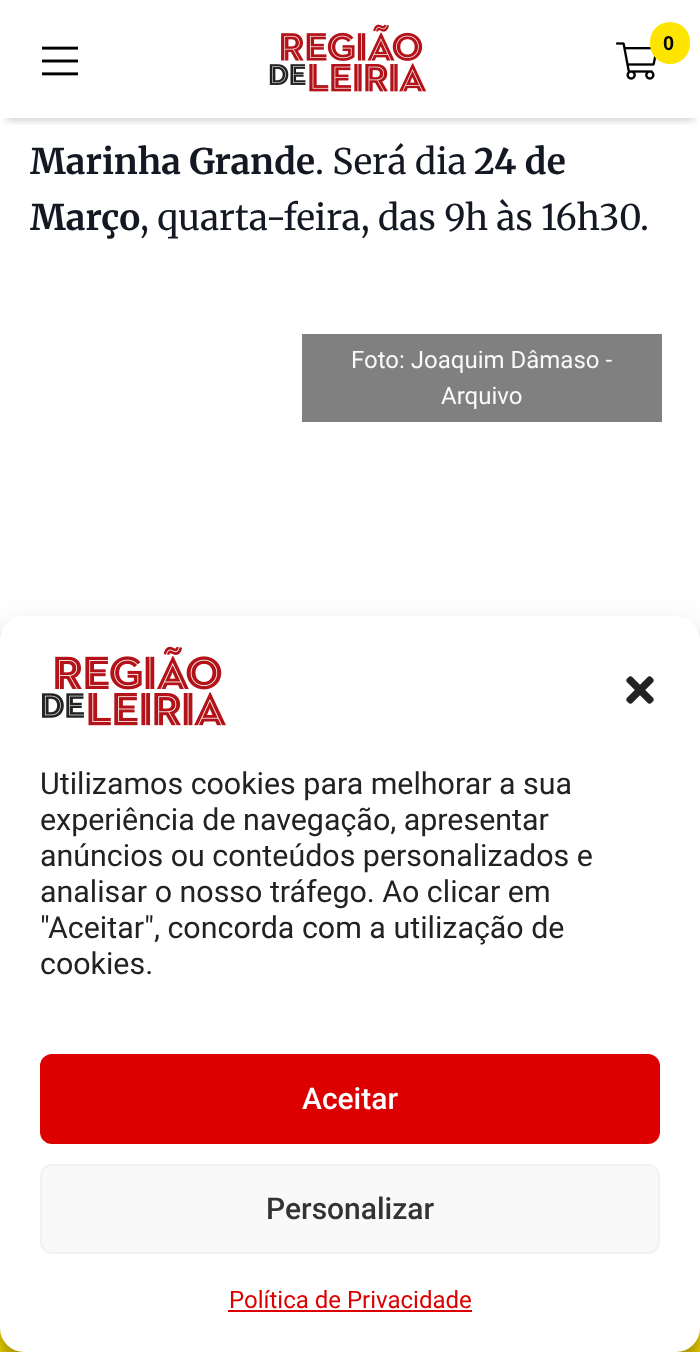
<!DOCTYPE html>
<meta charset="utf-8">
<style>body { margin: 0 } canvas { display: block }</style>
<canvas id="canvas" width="700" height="1352"></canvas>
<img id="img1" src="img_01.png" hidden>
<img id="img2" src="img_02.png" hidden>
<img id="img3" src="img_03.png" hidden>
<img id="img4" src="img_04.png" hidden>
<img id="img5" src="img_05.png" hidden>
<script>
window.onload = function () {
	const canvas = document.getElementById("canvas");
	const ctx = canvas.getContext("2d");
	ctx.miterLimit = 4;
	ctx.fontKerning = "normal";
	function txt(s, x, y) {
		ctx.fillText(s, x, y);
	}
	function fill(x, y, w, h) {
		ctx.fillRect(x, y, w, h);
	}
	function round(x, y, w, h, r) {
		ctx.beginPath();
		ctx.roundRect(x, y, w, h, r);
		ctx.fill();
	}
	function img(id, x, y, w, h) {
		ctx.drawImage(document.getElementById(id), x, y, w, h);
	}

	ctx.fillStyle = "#FFFFFF";
	fill(0, 0, 700, 1352);
	ctx.save();
	ctx.beginPath();
	ctx.rect(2, 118, 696, 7);
	ctx.clip();
	ctx.fillStyle = "rgba(0, 0, 0, 0.2)";
	ctx.filter = "blur(4px)";
	ctx.beginPath();
	ctx.rect(6, 14, 688, 106);
	ctx.fill();
	ctx.filter = "none";
	ctx.restore();
	img("img1", 269, 24, 158, 68);
	img("img2", 616, 42, 41, 38);
	ctx.fillStyle = "#FDE500";
	round(650, 22, 40, 42, 20);
	img("img3", 42, 46, 36, 30);
	ctx.fillStyle = "#808080";
	fill(302, 334, 360, 88);
	ctx.fillStyle = "#FDE000";
	fill(0, 1328, 700, 24);
	ctx.fillStyle = "rgba(0, 0, 0, 0.23)";
	ctx.filter = "blur(6px)";
	ctx.beginPath();
	ctx.roundRect(0, 628, 700, 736, 24);
	ctx.fill();
	ctx.filter = "none";
	ctx.fillStyle = "rgba(0, 0, 0, 0.19)";
	ctx.filter = "blur(20px)";
	ctx.beginPath();
	ctx.roundRect(0, 636, 700, 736, 24);
	ctx.fill();
	ctx.filter = "none";
	ctx.fillStyle = "#FFFFFF";
	round(0, 616, 700, 736, 24);
	img("img4", 42, 646, 184, 80);
	img("img5", 626, 676, 28, 28);
	ctx.fillStyle = "#DC0000";
	ctx.beginPath();
	ctx.roundRect(41, 1055, 618, 88, 11);
	ctx.fill();
	ctx.strokeStyle = "#DC0000";
	ctx.lineWidth = 2;
	ctx.stroke();
	ctx.fillStyle = "#F9F9F9";
	ctx.beginPath();
	ctx.roundRect(41, 1165, 618, 88, 11);
	ctx.fill();
	ctx.strokeStyle = "#F2F2F2";
	ctx.stroke();
	ctx.fillStyle = "#DC0000";
	fill(228, 1310, 244, 2);
	ctx.font = "bold 20px Liberation Sans";
	ctx.fillStyle = "#000000";
	txt("0", 663, 50);
	ctx.font = "bold 35.25px Merriweather";
	ctx.fillStyle = "#141823";
	txt("Marinha Grande", 30, 174);
	ctx.font = "35.25px Merriweather";
	txt(". Será dia", 315, 174);
	ctx.font = "bold 35.25px Merriweather";
	txt("24 de", 474, 174);
	txt("Março", 30, 230);
	ctx.font = "35.25px Merriweather";
	txt(", quarta-feira, das 9h às 16h30.", 140, 230);
	ctx.font = "24px Roboto";
	ctx.fillStyle = "#F9F9F9";
	txt("Foto: Joaquim Dâmaso -", 351, 368);
	txt("Arquivo", 441, 404);
	ctx.font = "30.4px Roboto";
	ctx.fillStyle = "#222222";
	txt("Utilizamos cookies para melhorar a sua", 40, 794);
	txt("experiência de navegação, apresentar", 40, 830);
	txt("anúncios ou conteúdos personalizados e", 40, 866);
	txt("analisar o nosso tráfego. Ao clicar em", 40, 902);
	txt("\"Aceitar\", concorda com a utilização de", 40, 938);
	txt("cookies.", 40, 974);
	ctx.font = "500 30px Roboto";
	ctx.fillStyle = "#FFFFFF";
	txt("Aceitar", 302, 1109);
	ctx.fillStyle = "#333333";
	txt("Personalizar", 266, 1219);
	ctx.font = "24px Roboto";
	ctx.fillStyle = "#DC0000";
	txt("Política de Privacidade", 229, 1308);
};
</script>
